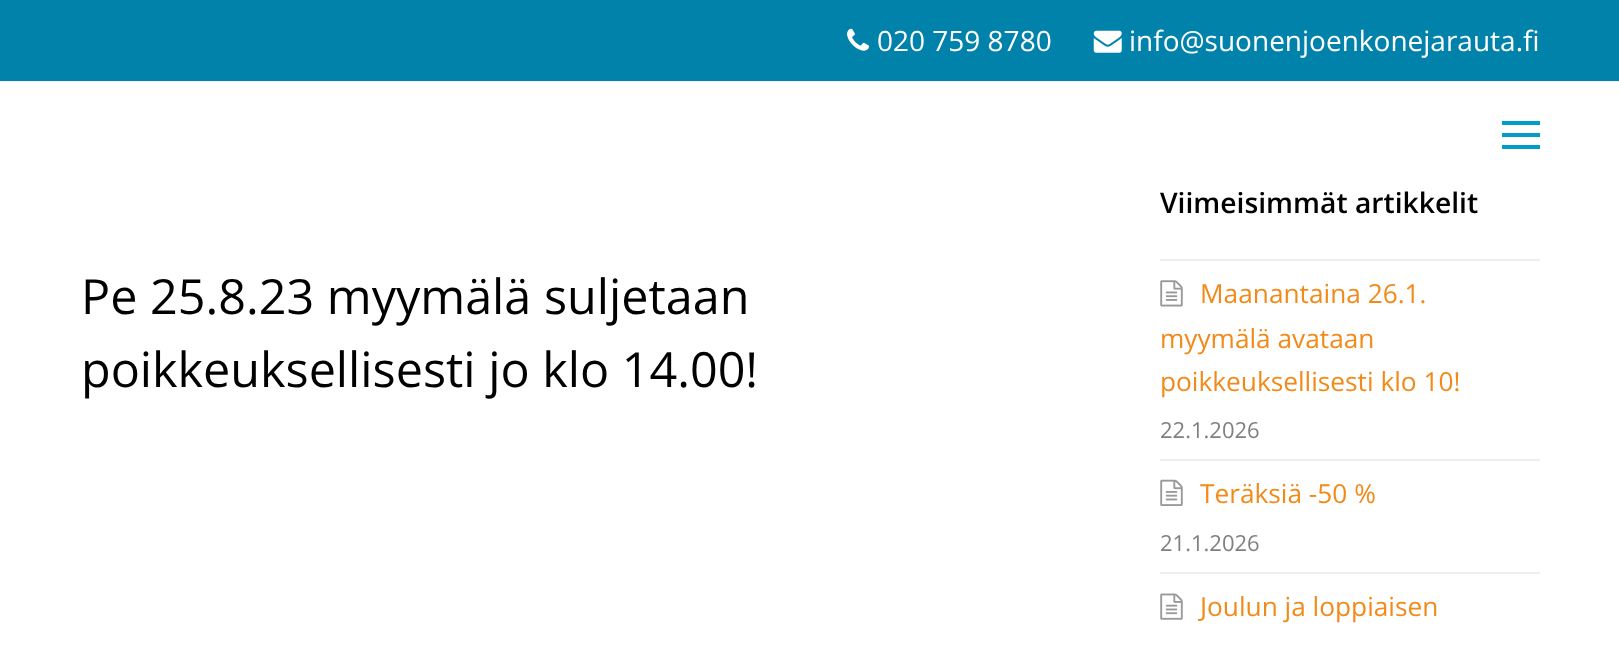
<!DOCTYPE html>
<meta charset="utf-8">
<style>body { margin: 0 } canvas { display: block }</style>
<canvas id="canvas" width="1619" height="649"></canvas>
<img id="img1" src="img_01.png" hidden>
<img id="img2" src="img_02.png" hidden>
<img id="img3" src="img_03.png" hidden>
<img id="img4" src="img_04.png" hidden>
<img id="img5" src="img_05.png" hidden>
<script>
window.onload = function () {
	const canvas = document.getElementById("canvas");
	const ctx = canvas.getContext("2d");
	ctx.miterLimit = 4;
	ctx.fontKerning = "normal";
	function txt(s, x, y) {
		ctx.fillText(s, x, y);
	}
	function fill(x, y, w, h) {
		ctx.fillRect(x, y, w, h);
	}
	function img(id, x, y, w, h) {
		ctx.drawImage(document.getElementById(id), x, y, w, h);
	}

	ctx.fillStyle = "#FFFFFF";
	fill(0, 0, 1619, 649);
	ctx.fillStyle = "#0082AA";
	fill(0, 0, 1619, 81);
	ctx.fillStyle = "#EEEEEE";
	fill(0, 81, 1619, 1);
	img("img1", 847, 28, 22, 23);
	img("img2", 1093, 30, 29, 23);
	ctx.fillStyle = "#009CCA";
	fill(1502, 133, 38, 4);
	fill(1502, 121, 38, 4);
	fill(1502, 145, 38, 4);
	ctx.fillStyle = "#EEEEEE";
	fill(1160, 259, 380, 2);
	fill(1160, 459, 380, 2);
	img("img3", 1160, 280, 23, 27);
	fill(1160, 572, 380, 2);
	img("img4", 1160, 479, 23, 27);
	img("img5", 1160, 593, 23, 27);
	ctx.font = "28px Open Sans";
	ctx.fillStyle = "#FFFFFF";
	txt("020 759 8780", 877, 51);
	txt("info@suonenjoenkonejarauta.fi", 1129, 51);
	ctx.font = "48.5px Open Sans";
	ctx.fillStyle = "#000000";
	txt("Pe 25.8.23 myymälä suljetaan", 81, 314);
	txt("poikkeuksellisesti jo klo 14.00!", 81, 387);
	ctx.font = "600 28.25px Open Sans";
	txt("Viimeisimmät artikkelit", 1160, 213);
	ctx.font = "26.25px Open Sans";
	ctx.fillStyle = "#F28A19";
	txt("Maanantaina 26.1.", 1200, 303);
	txt("myymälä avataan", 1160, 348);
	txt("poikkeuksellisesti klo 10!", 1160, 391);
	ctx.font = "22px Open Sans";
	ctx.fillStyle = "#808080";
	txt("22.1.2026", 1160, 438);
	ctx.font = "26.25px Open Sans";
	ctx.fillStyle = "#F28A19";
	txt("Teräksiä -50 %", 1200, 503);
	ctx.font = "22px Open Sans";
	ctx.fillStyle = "#808080";
	txt("21.1.2026", 1160, 551);
	ctx.font = "26.25px Open Sans";
	ctx.fillStyle = "#F28A19";
	txt("Joulun ja loppiaisen", 1200, 616);
};
</script>
